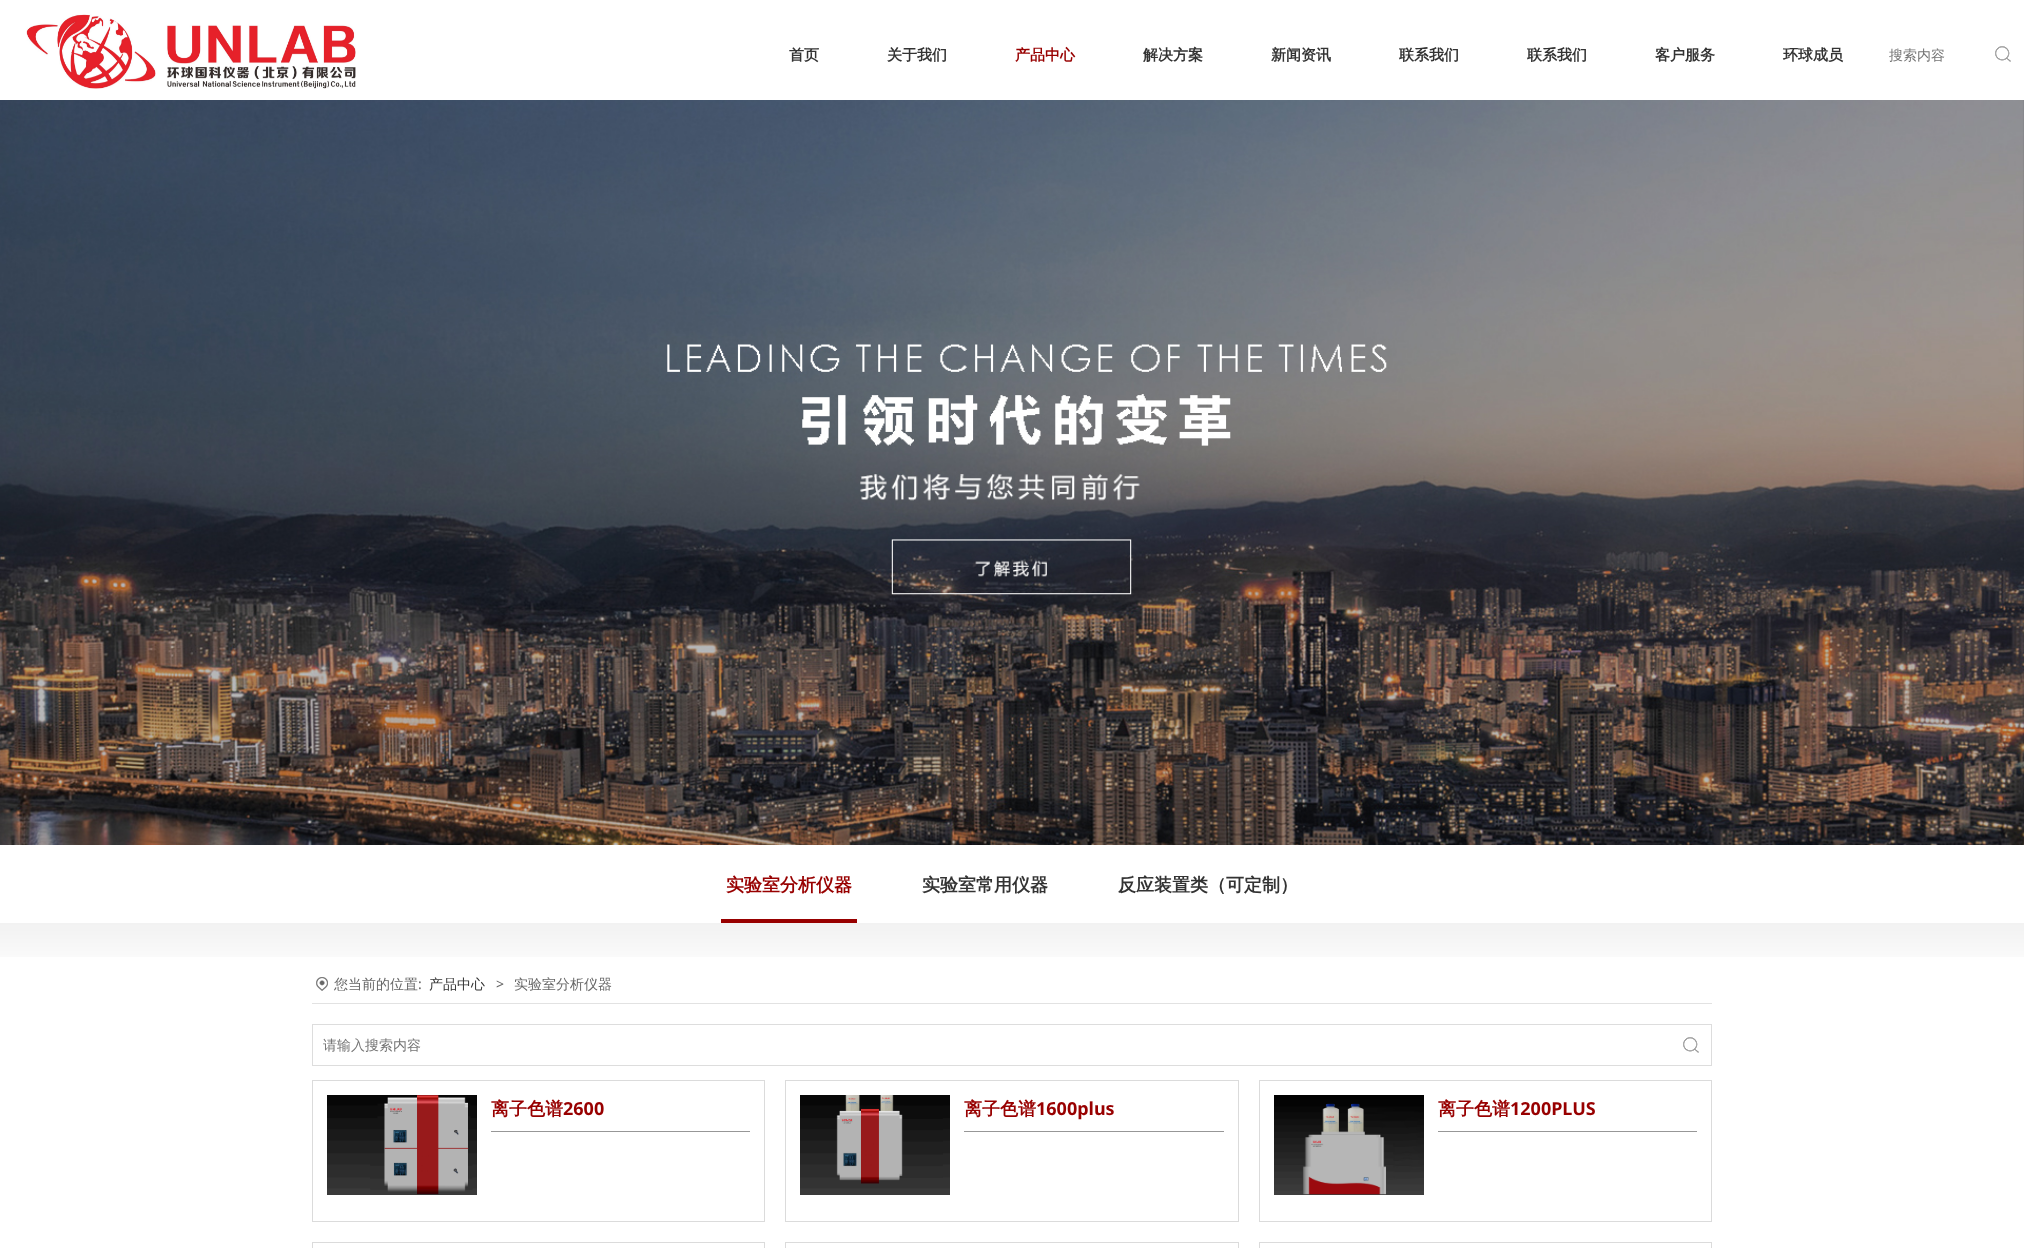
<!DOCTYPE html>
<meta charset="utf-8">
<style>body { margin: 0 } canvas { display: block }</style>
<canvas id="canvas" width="2024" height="1248"></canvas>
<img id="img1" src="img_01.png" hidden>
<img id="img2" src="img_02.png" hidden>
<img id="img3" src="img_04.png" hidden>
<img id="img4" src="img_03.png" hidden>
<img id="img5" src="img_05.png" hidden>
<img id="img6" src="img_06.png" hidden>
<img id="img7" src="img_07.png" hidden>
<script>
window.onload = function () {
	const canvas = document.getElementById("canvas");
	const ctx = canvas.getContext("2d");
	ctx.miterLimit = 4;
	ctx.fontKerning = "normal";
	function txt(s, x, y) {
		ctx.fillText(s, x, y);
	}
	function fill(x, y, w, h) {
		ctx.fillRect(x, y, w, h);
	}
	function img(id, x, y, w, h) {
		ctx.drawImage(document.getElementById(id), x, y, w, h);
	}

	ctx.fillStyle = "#FFFFFF";
	fill(0, 0, 2024, 1248);
	img("img1", 26, 14, 330, 75);
	img("img2", 1995, 46, 16, 16);
	img("img3", 316, 977, 12, 14);
	ctx.fillStyle = "#E2E2E2";
	fill(312, 1003, 1400, 1);
	ctx.save();
	ctx.beginPath();
	ctx.rect(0, 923, 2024, 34);
	ctx.clip();
	ctx.fillStyle = "rgba(0, 0, 0, 0.06)";
	ctx.filter = "blur(23px)";
	ctx.beginPath();
	ctx.rect(-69, 869, 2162, 78);
	ctx.fill();
	ctx.filter = "none";
	ctx.restore();
	img("img4", 0, 100, 2024, 745);
	ctx.fillStyle = "#980000";
	fill(721, 919, 136, 4);
	ctx.strokeStyle = "#DDDDDD";
	ctx.strokeRect(312.5, 1024.5, 1399, 41);
	img("img2", 1683, 1037, 16, 16);
	ctx.strokeStyle = "#DBDBDB";
	ctx.strokeRect(312.5, 1080.5, 452, 141);
	img("img5", 327, 1095, 150, 100);
	ctx.fillStyle = "#979797";
	fill(491, 1131, 259, 1);
	ctx.strokeRect(785.5, 1080.5, 453, 141);
	img("img6", 800, 1095, 150, 100);
	fill(964, 1131, 260, 1);
	ctx.strokeRect(1259.5, 1080.5, 452, 141);
	img("img7", 1274, 1095, 150, 100);
	fill(1438, 1131, 259, 1);
	ctx.strokeRect(312.5, 1242.5, 452, 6);
	ctx.strokeRect(785.5, 1242.5, 453, 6);
	ctx.strokeRect(1259.5, 1242.5, 452, 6);
	ctx.font = "bold 15px WenQuanYi Zen Hei";
	ctx.fillStyle = "#333333";
	txt("首页", 789, 60);
	txt("关于我们", 887, 60);
	ctx.fillStyle = "#980000";
	txt("产品中心", 1015, 60);
	ctx.fillStyle = "#333333";
	txt("解决方案", 1143, 60);
	txt("新闻资讯", 1271, 60);
	txt("联系我们", 1399, 60);
	txt("联系我们", 1527, 60);
	txt("客户服务", 1655, 60);
	txt("环球成员", 1783, 60);
	ctx.font = "500 14px WenQuanYi Zen Hei";
	ctx.fillStyle = "#757575";
	txt("搜索内容", 1889, 60);
	ctx.font = "bold 18px WenQuanYi Zen Hei";
	ctx.fillStyle = "#980000";
	txt("实验室分析仪器", 726, 891);
	ctx.fillStyle = "#333333";
	txt("实验室常用仪器", 922, 891);
	txt("反应装置类（可定制）", 1118, 891);
	ctx.font = "500 14px WenQuanYi Zen Hei";
	ctx.fillStyle = "#666666";
	txt("您当前的位置", 334, 989);
	ctx.font = "14px Noto Sans";
	txt(":", 418, 989);
	ctx.font = "500 14px WenQuanYi Zen Hei";
	ctx.fillStyle = "#333333";
	txt("产品中心", 429, 989);
	ctx.font = "14px Noto Sans";
	ctx.fillStyle = "#666666";
	txt(">", 496, 989);
	ctx.font = "500 14px WenQuanYi Zen Hei";
	txt("实验室分析仪器", 514, 989);
	ctx.fillStyle = "#757575";
	txt("请输入搜索内容", 323, 1050);
	ctx.font = "bold 18px WenQuanYi Zen Hei";
	ctx.fillStyle = "#980000";
	txt("离子色谱", 491, 1115);
	ctx.font = "bold 18px Noto Sans";
	txt("2600", 563, 1115);
	ctx.font = "bold 18px WenQuanYi Zen Hei";
	txt("离子色谱", 964, 1115);
	ctx.font = "bold 18px Noto Sans";
	txt("1600plus", 1036, 1115);
	ctx.font = "bold 18px WenQuanYi Zen Hei";
	txt("离子色谱", 1438, 1115);
	ctx.font = "bold 18px Noto Sans";
	txt("1200PLUS", 1510, 1115);
};
</script>
